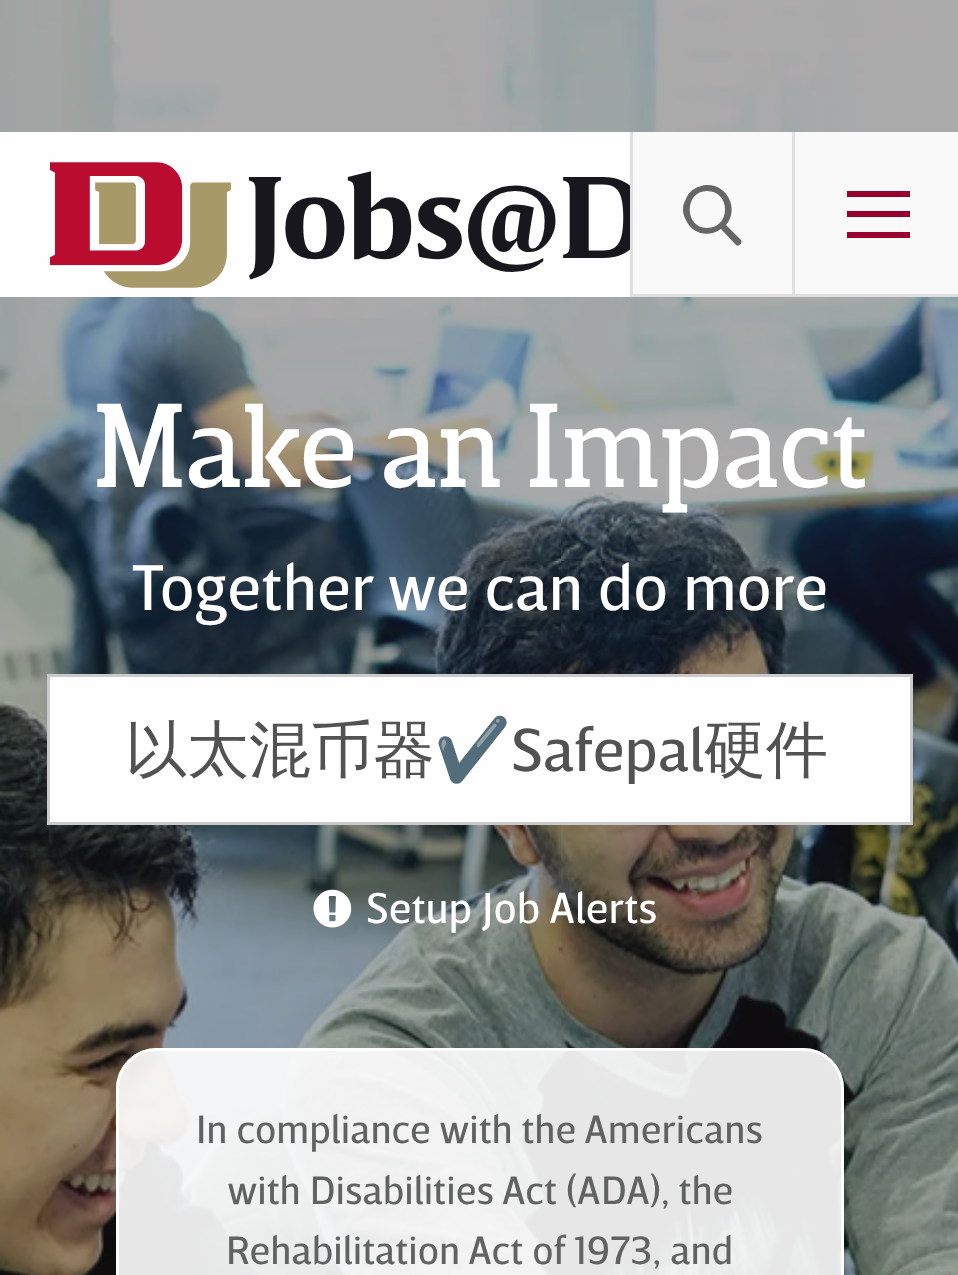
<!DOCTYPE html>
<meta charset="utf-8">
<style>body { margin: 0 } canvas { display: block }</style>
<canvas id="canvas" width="958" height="1275"></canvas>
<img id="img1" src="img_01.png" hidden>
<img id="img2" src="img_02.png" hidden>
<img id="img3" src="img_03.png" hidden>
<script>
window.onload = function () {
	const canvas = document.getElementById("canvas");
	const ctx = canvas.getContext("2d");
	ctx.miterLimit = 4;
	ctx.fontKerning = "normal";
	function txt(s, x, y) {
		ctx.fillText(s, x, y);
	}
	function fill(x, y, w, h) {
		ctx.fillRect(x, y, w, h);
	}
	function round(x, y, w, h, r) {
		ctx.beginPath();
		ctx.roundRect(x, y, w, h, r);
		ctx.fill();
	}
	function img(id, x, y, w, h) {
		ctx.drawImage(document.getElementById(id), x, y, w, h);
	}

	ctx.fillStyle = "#FFFFFF";
	fill(0, 0, 958, 1275);
	img("img1", 0, 0, 958, 1275);
	ctx.fillStyle = "#FEFEFE";
	fill(0, 132, 630, 165);
	img("img2", 50, 162, 181, 126);
	ctx.fillStyle = "#E0E0E0";
	fill(792, 132, 3, 165);
	fill(630, 294, 328, 3);
	ctx.fillStyle = "#F9F9F9";
	fill(795, 132, 163, 162);
	ctx.fillStyle = "#98012E";
	ctx.beginPath();
	ctx.moveTo(847, 191);
	ctx.lineTo(910, 191);
	ctx.lineTo(910, 197);
	ctx.lineTo(847, 197);
	ctx.closePath();
	ctx.moveTo(847, 211);
	ctx.lineTo(910, 211);
	ctx.lineTo(910, 217);
	ctx.lineTo(847, 217);
	ctx.closePath();
	ctx.moveTo(847, 232);
	ctx.lineTo(910, 232);
	ctx.lineTo(910, 238);
	ctx.lineTo(847, 238);
	ctx.closePath();
	ctx.fill();
	ctx.fillStyle = "#FEFEFE";
	ctx.beginPath();
	ctx.rect(48.5, 675.5, 863, 148);
	ctx.fill();
	ctx.strokeStyle = "#CACACA";
	ctx.lineWidth = 3;
	ctx.stroke();
	img("img3", 313, 889, 39, 39);
	ctx.fillStyle = "rgba(255, 255, 255, 0.9)";
	round(116, 1048, 728, 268, 41);
	ctx.beginPath();
	ctx.roundRect(117.5, 1049.5, 725, 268, 39.5);
	ctx.strokeStyle = "rgba(255, 255, 255, 0.9)";
	ctx.stroke();
	ctx.letterSpacing = "-1.5px";
	ctx.font = "bold 119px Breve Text";
	ctx.fillStyle = "#18171E";
	txt("Jobs@D", 245, 258);
	ctx.fillStyle = "#F9F9F9";
	fill(633, 132, 159, 162);
	ctx.fillStyle = "#E0E0E0";
	fill(630, 132, 3, 165);
	ctx.fillStyle = "#666666";
	ctx.beginPath();
	ctx.moveTo(741, 240);
	ctx.lineTo(726, 225);
	ctx.bezierCurveTo(742, 206, 722, 177, 698, 187);
	ctx.bezierCurveTo(693, 189, 688, 193, 686, 199);
	ctx.bezierCurveTo(682, 205, 682, 214, 686, 220);
	ctx.bezierCurveTo(692, 234, 709, 238, 721, 229);
	ctx.lineTo(736, 245);
	ctx.bezierCurveTo(739, 247, 743, 243, 741, 240);
	ctx.closePath();
	ctx.moveTo(707, 191);
	ctx.bezierCurveTo(731, 191, 731, 228, 707, 228);
	ctx.bezierCurveTo(684, 228, 684, 191, 707, 191);
	ctx.closePath();
	ctx.fill();
	ctx.letterSpacing = "0px";
	ctx.font = "115.5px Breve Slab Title";
	ctx.fillStyle = "#FFFFFF";
	txt("Make an Impact", 93, 487);
	ctx.font = "66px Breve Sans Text";
	txt("Together we can do more", 131, 610);
	ctx.font = "500 62px WenQuanYi Zen Hei";
	ctx.fillStyle = "#525252";
	txt("以太混币器", 125, 771);
	ctx.font = "62px Noto Color Emoji";
	txt("✔️", 434, 771);
	ctx.save();
	ctx.beginPath();
	ctx.rect(124, 712, 712, 72);
	ctx.clip();
	ctx.font = "62px Breve Sans Text";
	txt("Safepal", 511, 771);
	ctx.restore();
	ctx.font = "500 62px WenQuanYi Zen Hei";
	txt("硬件", 704, 771);
	ctx.font = "44px Breve Sans Text";
	ctx.fillStyle = "#FFFFFF";
	txt("Setup Job Alerts", 366, 923);
	ctx.font = "40.3px Breve Sans Text";
	ctx.fillStyle = "#616262";
	txt("In compliance with the Americans", 196, 1143);
	txt("with Disabilities Act (ADA), the", 227, 1204);
	txt("Rehabilitation Act of 1973, and", 226, 1264);
};
</script>
